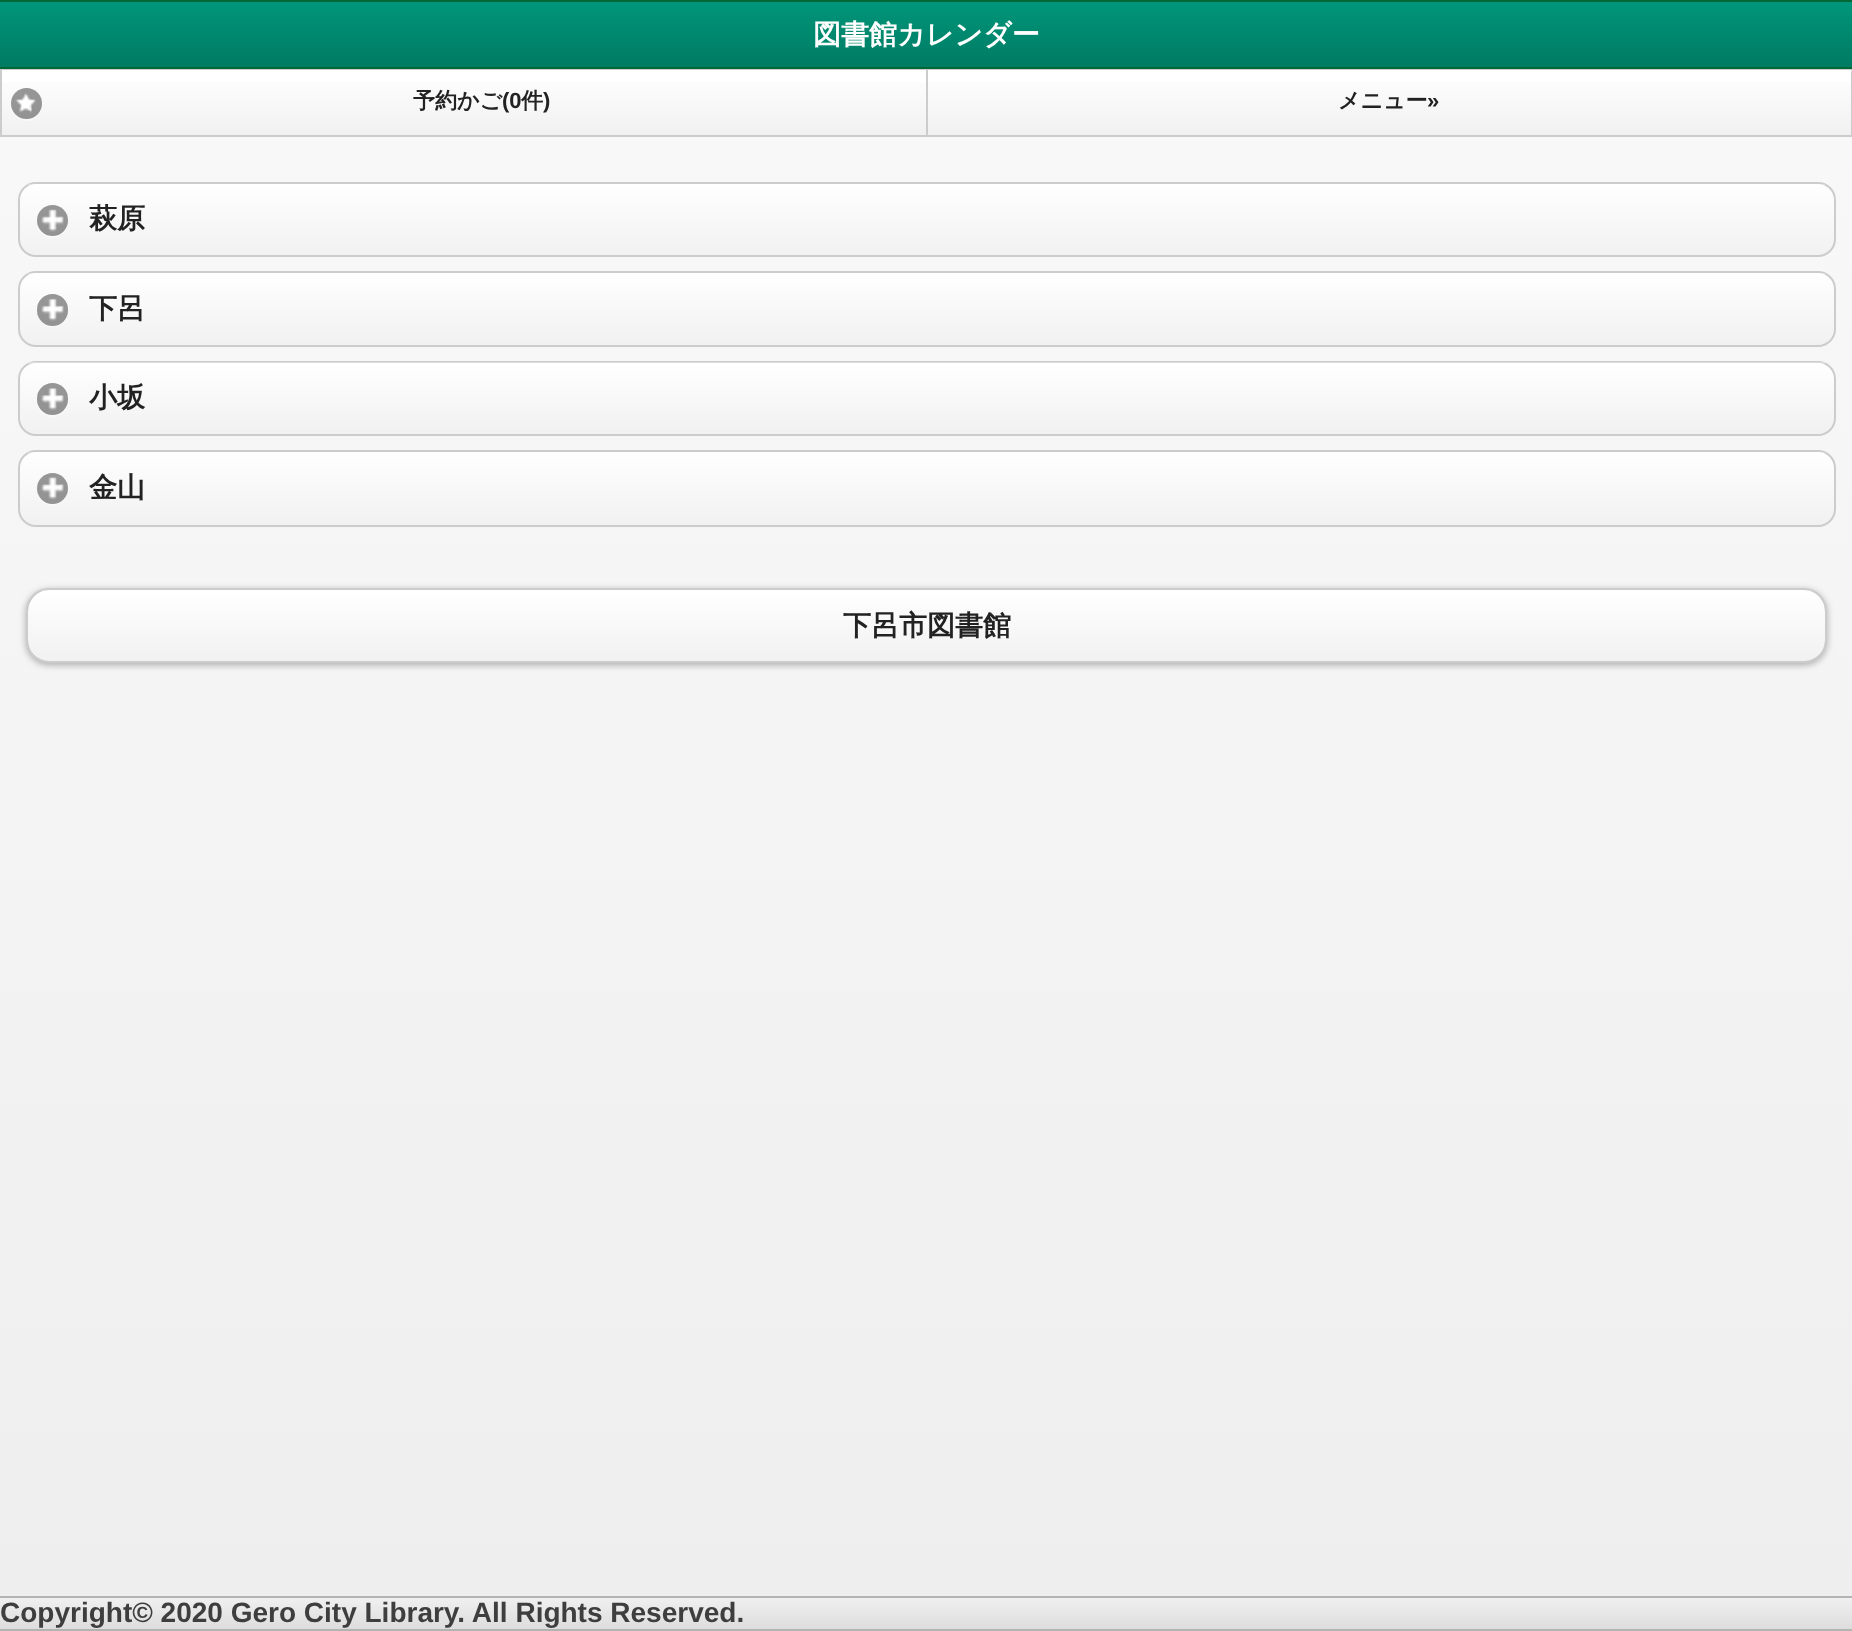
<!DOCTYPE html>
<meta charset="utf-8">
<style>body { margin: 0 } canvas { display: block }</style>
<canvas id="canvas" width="1852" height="1631"></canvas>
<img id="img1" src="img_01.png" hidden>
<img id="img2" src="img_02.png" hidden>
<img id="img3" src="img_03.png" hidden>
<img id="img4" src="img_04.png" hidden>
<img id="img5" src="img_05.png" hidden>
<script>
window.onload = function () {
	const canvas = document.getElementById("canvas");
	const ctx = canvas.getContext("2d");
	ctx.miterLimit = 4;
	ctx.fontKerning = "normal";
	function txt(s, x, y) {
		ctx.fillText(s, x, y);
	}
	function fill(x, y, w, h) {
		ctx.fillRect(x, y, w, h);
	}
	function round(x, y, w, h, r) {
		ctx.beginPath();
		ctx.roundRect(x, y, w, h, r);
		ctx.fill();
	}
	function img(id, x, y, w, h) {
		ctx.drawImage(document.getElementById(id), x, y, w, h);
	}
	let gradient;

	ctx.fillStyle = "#FFFFFF";
	fill(0, 0, 1852, 1631);
	gradient = ctx.createLinearGradient(927, 0, 927, 1631);
	gradient.addColorStop(0, "#F9F9F9");
	gradient.addColorStop(1, "#EEEEEE");
	ctx.fillStyle = gradient;
	fill(0, 137, 1852, 1459);
	gradient = ctx.createLinearGradient(927, 1.7, 927, 67);
	gradient.addColorStop(0, "#00967A");
	gradient.addColorStop(1, "#007B63");
	ctx.fillStyle = gradient;
	fill(0, 2, 1852, 65);
	ctx.fillStyle = "#006837";
	fill(0, 0, 1852, 2);
	ctx.fillStyle = "#CCCCCC";
	fill(0, 69, 929, 1);
	fill(0, 135, 929, 2);
	fill(0, 68, 2, 69);
	gradient = ctx.createLinearGradient(1390, 70, 1390, 135);
	gradient.addColorStop(0, "#FFFFFF");
	gradient.addColorStop(1, "#F1F1F1");
	ctx.fillStyle = gradient;
	fill(928, 82, 923, 53);
	ctx.strokeStyle = "#CCCCCC";
	ctx.lineWidth = 2;
	ctx.strokeRect(927, 69, 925, 67);
	ctx.fillStyle = "#006837";
	fill(0, 67, 1852, 2);
	gradient = ctx.createLinearGradient(466, 70, 466, 135);
	gradient.addColorStop(0, "#FFFFFF");
	gradient.addColorStop(1, "#F1F1F1");
	ctx.fillStyle = gradient;
	fill(2, 82, 924, 53);
	ctx.fillStyle = "rgba(255, 255, 255, 0.4)";
	ctx.beginPath();
	ctx.moveTo(11, 108);
	ctx.bezierCurveTo(14, 127, 43, 124.5, 42, 104);
	ctx.bezierCurveTo(41.5, 121.5, 16, 124.5, 11, 108);
	ctx.closePath();
	ctx.fill();
	ctx.fillStyle = "rgba(0, 0, 0, 0.4)";
	ctx.beginPath();
	ctx.arc(26.5, 103.5, 15.5, 0, Math.PI * 2);
	ctx.fill();
	img("img1", 15, 93, 21, 20);
	ctx.fillStyle = "rgba(255, 255, 255, 0.3)";
	fill(1851, 70, 1, 2);
	gradient = ctx.createLinearGradient(927, 184, 927, 256);
	gradient.addColorStop(0, "#FFFFFF");
	gradient.addColorStop(1, "#F1F1F1");
	ctx.fillStyle = gradient;
	round(19, 184, 1815, 72, 16);
	ctx.beginPath();
	ctx.roundRect(19, 183, 1816, 73, 17);
	ctx.stroke();
	ctx.fillStyle = "rgba(255, 255, 255, 0.3)";
	fill(28, 184, 1797, 2);
	ctx.fillStyle = "#F9F9F9";
	ctx.beginPath();
	ctx.moveTo(37, 223.5);
	ctx.bezierCurveTo(38, 242.5, 67, 242.5, 68, 223.5);
	ctx.bezierCurveTo(65, 240.5, 40, 240.5, 37, 223.5);
	ctx.closePath();
	ctx.fill();
	ctx.fillStyle = "rgba(0, 0, 0, 0.4)";
	ctx.beginPath();
	ctx.arc(52.5, 220.5, 15.5, 0, Math.PI * 2);
	ctx.fill();
	img("img2", 41, 209, 23, 23);
	gradient = ctx.createLinearGradient(927, 273, 927, 345);
	gradient.addColorStop(0, "#FFFFFF");
	gradient.addColorStop(1, "#F1F1F1");
	ctx.fillStyle = gradient;
	round(19, 273, 1815, 72, 16);
	ctx.beginPath();
	ctx.roundRect(19, 272, 1816, 74, 17);
	ctx.stroke();
	ctx.fillStyle = "rgba(255, 255, 255, 0.3)";
	fill(28, 273, 1797, 2);
	ctx.fillStyle = "#F9F9F9";
	ctx.beginPath();
	ctx.moveTo(37, 313);
	ctx.bezierCurveTo(38.5, 331.5, 66.5, 331.5, 68, 313);
	ctx.bezierCurveTo(64.5, 329.5, 40.5, 329.5, 37, 313);
	ctx.closePath();
	ctx.fill();
	ctx.fillStyle = "rgba(0, 0, 0, 0.4)";
	round(37, 294, 31, 32, 15.5);
	img("img3", 41, 298, 23, 23);
	gradient = ctx.createLinearGradient(927, 362, 927, 434);
	gradient.addColorStop(0, "#FFFFFF");
	gradient.addColorStop(1, "#F1F1F1");
	ctx.fillStyle = gradient;
	round(19, 362, 1815, 72, 16);
	ctx.beginPath();
	ctx.roundRect(19, 362, 1816, 73, 17);
	ctx.stroke();
	ctx.fillStyle = "rgba(255, 255, 255, 0.3)";
	fill(28, 362, 1797, 2);
	ctx.fillStyle = "rgba(255, 255, 255, 0.4)";
	ctx.beginPath();
	ctx.moveTo(37, 402);
	ctx.bezierCurveTo(37.5, 422, 67.5, 422, 68, 402);
	ctx.bezierCurveTo(65, 419, 40, 419, 37, 402);
	ctx.closePath();
	ctx.fill();
	ctx.fillStyle = "rgba(0, 0, 0, 0.4)";
	round(37, 383, 31, 32, 15.5);
	img("img4", 41, 388, 23, 22);
	gradient = ctx.createLinearGradient(927, 451, 927, 525);
	gradient.addColorStop(0, "#FFFFFF");
	gradient.addColorStop(1, "#F1F1F1");
	ctx.fillStyle = gradient;
	round(19, 452, 1815, 73, 16);
	ctx.beginPath();
	ctx.roundRect(19, 451, 1816, 75, 17);
	ctx.stroke();
	ctx.fillStyle = "rgba(255, 255, 255, 0.3)";
	fill(28, 452, 1797, 2);
	ctx.fillStyle = "#F9F9F9";
	ctx.beginPath();
	ctx.moveTo(37, 491);
	ctx.bezierCurveTo(38, 510.5, 67, 510.5, 68, 491);
	ctx.bezierCurveTo(65, 508, 40, 508, 37, 491);
	ctx.closePath();
	ctx.fill();
	ctx.fillStyle = "rgba(0, 0, 0, 0.4)";
	ctx.beginPath();
	ctx.arc(52.5, 488.5, 15.5, 0, Math.PI * 2);
	ctx.fill();
	img("img5", 41, 477, 23, 23);
	ctx.fillStyle = "rgba(0, 0, 0, 0.3)";
	ctx.filter = "blur(3.5px)";
	ctx.beginPath();
	ctx.roundRect(26, 590, 1801, 75, 23);
	ctx.fill();
	ctx.filter = "none";
	gradient = ctx.createLinearGradient(927, 590, 927, 662);
	gradient.addColorStop(0, "#FFFFFF");
	gradient.addColorStop(1, "#F1F1F1");
	ctx.fillStyle = gradient;
	round(28, 590, 1797, 72, 21);
	ctx.beginPath();
	ctx.roundRect(27, 589, 1799, 73, 22);
	ctx.stroke();
	ctx.fillStyle = "rgba(255, 255, 255, 0.3)";
	fill(42, 590, 1769, 1);
	gradient = ctx.createLinearGradient(927, 1598, 927, 1629);
	gradient.addColorStop(0, "#F0F0F0");
	gradient.addColorStop(1, "#DDDDDD");
	ctx.fillStyle = gradient;
	fill(0, 1598, 1852, 31);
	ctx.fillStyle = "#B3B3B3";
	fill(0, 1596, 1852, 2);
	fill(0, 1629, 1852, 2);
	ctx.font = "bold 28px WenQuanYi Zen Hei";
	ctx.fillStyle = "#FFFFFF";
	txt("図書館カレンダー", 813, 44);
	ctx.font = "bold 22px WenQuanYi Zen Hei";
	ctx.fillStyle = "#222222";
	txt("予約かご", 413, 108);
	ctx.font = "bold 22px Liberation Sans";
	txt("(0", 502, 108);
	ctx.font = "bold 22px WenQuanYi Zen Hei";
	txt("件", 521, 108);
	ctx.font = "bold 22px Liberation Sans";
	txt(")", 543, 108);
	ctx.font = "bold 22px WenQuanYi Zen Hei";
	txt("メニュー", 1338, 108);
	ctx.font = "bold 22px Liberation Sans";
	txt("»", 1427, 108);
	ctx.font = "bold 28px WenQuanYi Zen Hei";
	txt("萩原", 89, 228);
	txt("下呂", 89, 318);
	txt("小坂", 89, 407);
	txt("金山", 89, 497);
	txt("下呂市図書館", 843, 635);
	ctx.font = "bold 28px Liberation Sans";
	ctx.fillStyle = "#3E3E3E";
	txt("Copyright© 2020 Gero City Library. All Rights Reserved.", 0, 1622);
};
</script>
